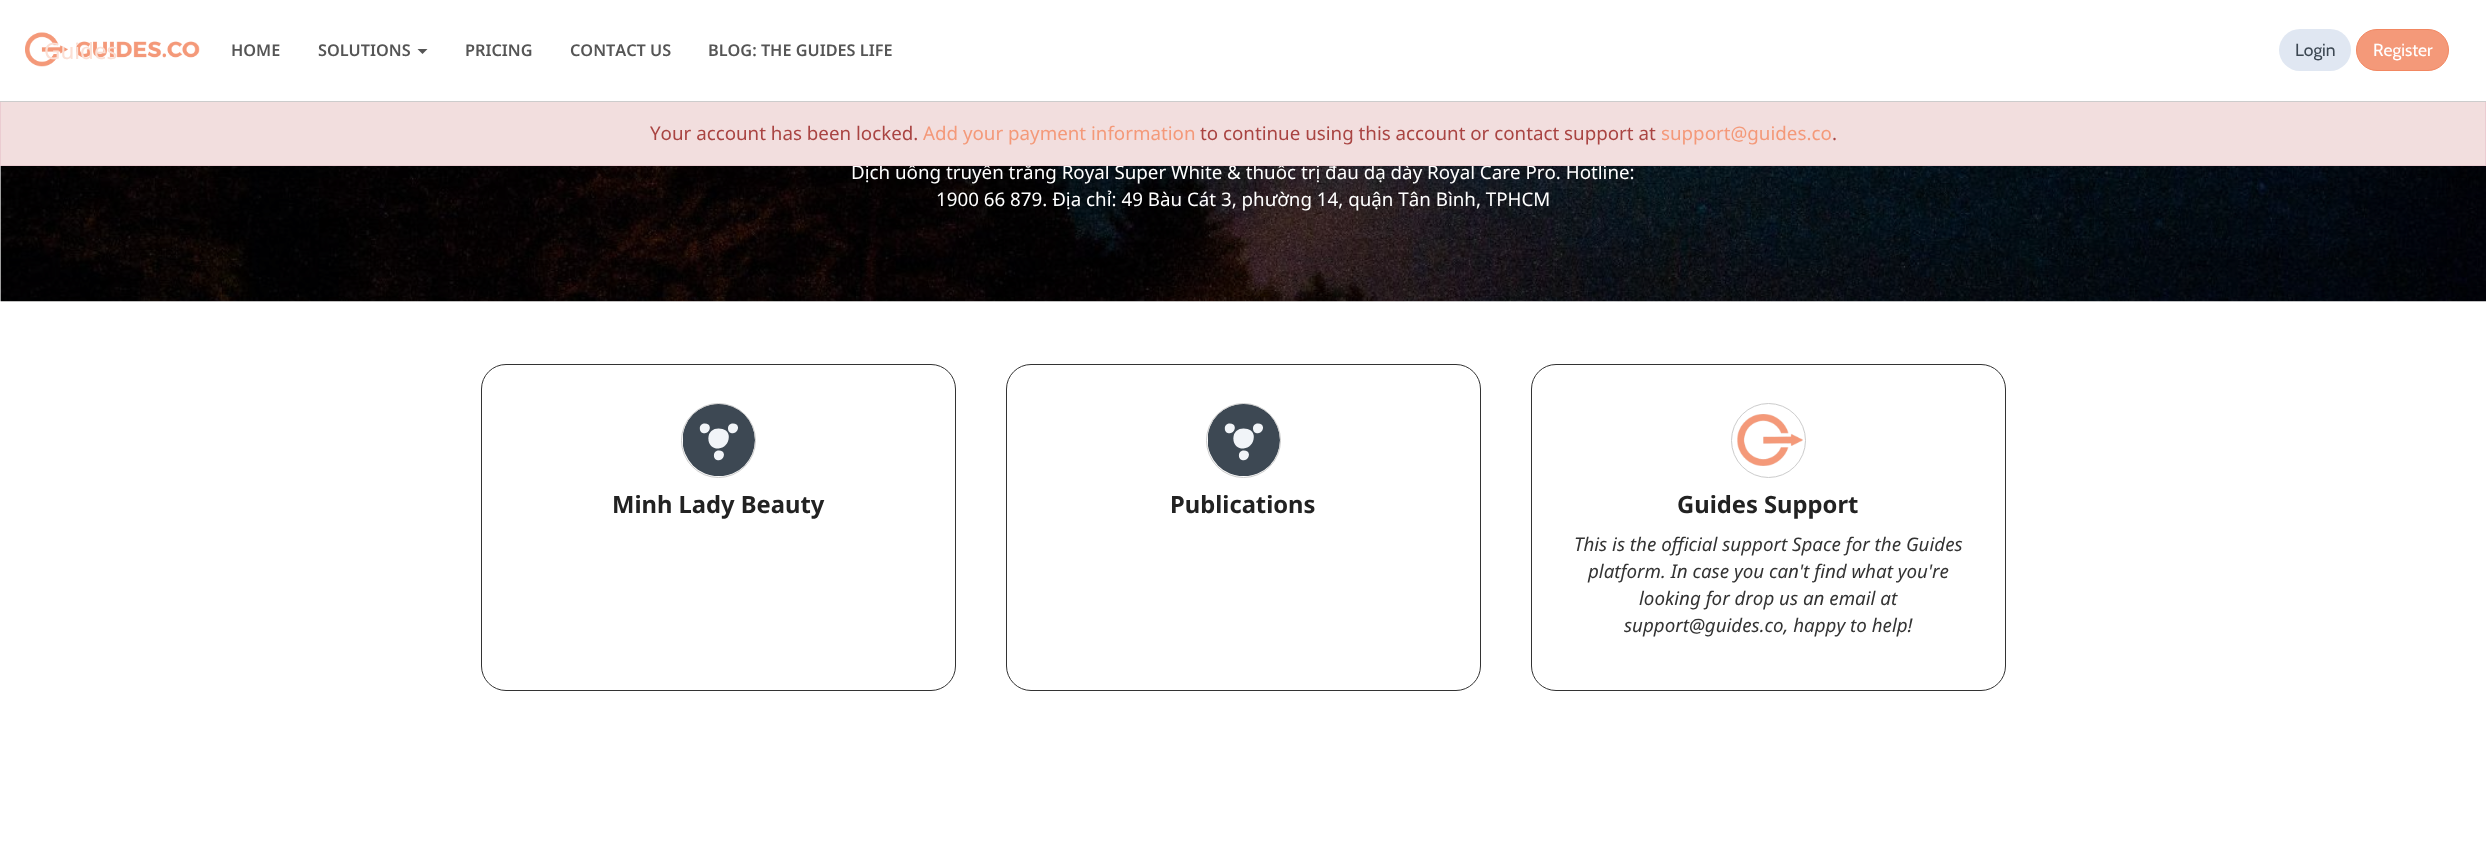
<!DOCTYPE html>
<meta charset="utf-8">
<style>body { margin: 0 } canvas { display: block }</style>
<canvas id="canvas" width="2486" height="847"></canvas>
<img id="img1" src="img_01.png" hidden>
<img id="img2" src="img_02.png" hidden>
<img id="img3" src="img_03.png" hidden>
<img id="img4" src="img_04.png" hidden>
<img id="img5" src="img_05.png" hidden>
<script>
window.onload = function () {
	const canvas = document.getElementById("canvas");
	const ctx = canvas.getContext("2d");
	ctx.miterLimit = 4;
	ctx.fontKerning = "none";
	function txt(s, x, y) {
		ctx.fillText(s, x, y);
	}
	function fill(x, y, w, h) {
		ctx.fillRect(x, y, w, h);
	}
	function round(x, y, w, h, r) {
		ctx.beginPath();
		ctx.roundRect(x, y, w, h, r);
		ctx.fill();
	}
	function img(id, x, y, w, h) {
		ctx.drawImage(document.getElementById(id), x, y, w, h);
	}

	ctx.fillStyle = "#FFFFFF";
	fill(0, 0, 2486, 847);
	img("img1", 25, 32, 175, 35);
	ctx.fillStyle = "#555555";
	ctx.beginPath();
	ctx.moveTo(417.5, 49);
	ctx.lineTo(427.5, 49);
	ctx.lineTo(422.5, 54);
	ctx.closePath();
	ctx.fill();
	ctx.fillStyle = "#E0E7F2";
	round(2279, 29, 72, 42, 21);
	ctx.fillStyle = "#F49979";
	ctx.beginPath();
	ctx.roundRect(2356.5, 29.5, 92, 41, 20.5);
	ctx.fill();
	ctx.strokeStyle = "#F28761";
	ctx.stroke();
	img("img2", 0, 166, 2486, 136);
	ctx.beginPath();
	ctx.roundRect(481.5, 364.5, 474, 326, 24.5);
	ctx.strokeStyle = "#333333";
	ctx.stroke();
	img("img3", 683, 404, 72, 72);
	ctx.beginPath();
	ctx.arc(718.5, 440.5, 37, 0, Math.PI * 2);
	ctx.strokeStyle = "#CCCCCC";
	ctx.stroke();
	ctx.beginPath();
	ctx.roundRect(1006.5, 364.5, 474, 326, 24.5);
	ctx.strokeStyle = "#333333";
	ctx.stroke();
	img("img4", 1208, 404, 72, 72);
	ctx.beginPath();
	ctx.arc(1243.5, 440.5, 37, 0, Math.PI * 2);
	ctx.strokeStyle = "#CCCCCC";
	ctx.stroke();
	ctx.beginPath();
	ctx.roundRect(1531.5, 364.5, 474, 326, 24.5);
	ctx.strokeStyle = "#333333";
	ctx.stroke();
	img("img5", 1737, 414, 66, 52);
	ctx.beginPath();
	ctx.arc(1768.5, 440.5, 37, 0, Math.PI * 2);
	ctx.strokeStyle = "#CCCCCC";
	ctx.stroke();
	ctx.font = "22.5px Noto Sans";
	ctx.fillStyle = "#FBDFD4";
	txt("Guides", 44, 59);
	ctx.font = "600 16.25px Noto Sans";
	ctx.fillStyle = "#555555";
	txt("HOME", 231, 56);
	txt("SOLUTIONS", 318, 56);
	txt("PRICING", 465, 56);
	txt("CONTACT US", 570, 56);
	txt("BLOG: THE GUIDES LIFE", 708, 56);
	ctx.font = "17.5px Cabin";
	ctx.fillStyle = "#3D4853";
	txt("Login", 2295, 56);
	ctx.fillStyle = "#FFFFFF";
	txt("Register", 2373, 56);
	ctx.font = "18.75px Noto Sans";
	txt("Dịch uống truyền trắng Royal Super White & thuốc trị đau dạ dày Royal Care Pro. Hotline:", 851, 179);
	ctx.fillStyle = "#F2DEDE";
	fill(1, 102, 2484, 63);
	ctx.strokeStyle = "#EBCCD1";
	ctx.strokeRect(0.5, 100.5, 2485, 65);
	ctx.fillStyle = "#CCCCCC";
	fill(0, 101, 2486, 1);
	ctx.fillStyle = "#FFFFFF";
	fill(0, 100, 2486, 1);
	ctx.fillStyle = "#A94442";
	txt(".", 1832, 140);
	ctx.fillStyle = "#F49979";
	txt("support@guides.co", 1661, 140);
	ctx.fillStyle = "#A94442";
	txt("to continue using this account or contact support at", 1200, 140);
	ctx.fillStyle = "#F49979";
	txt("Add your payment information", 923, 140);
	ctx.fillStyle = "#A94442";
	txt("Your account has been locked.", 650, 140);
	ctx.fillStyle = "#FFFFFF";
	txt("1900 66 879. Địa chỉ: 49 Bàu Cát 3, phường 14, quận Tân Bình, TPHCM", 936, 206);
	ctx.font = "bold 23.75px Noto Sans";
	ctx.fillStyle = "#222222";
	txt("Minh Lady Beauty", 612, 513);
	txt("Publications", 1170, 513);
	txt("Guides Support", 1677, 513);
	ctx.font = "italic 18.75px Noto Sans";
	ctx.fillStyle = "#333333";
	txt("This is the official support Space for the Guides", 1574, 551);
	txt("platform. In case you can't find what you're", 1588, 578);
	txt("looking for drop us an email at", 1639, 605);
	txt("support@guides.co, happy to help!", 1624, 632);
};
</script>
